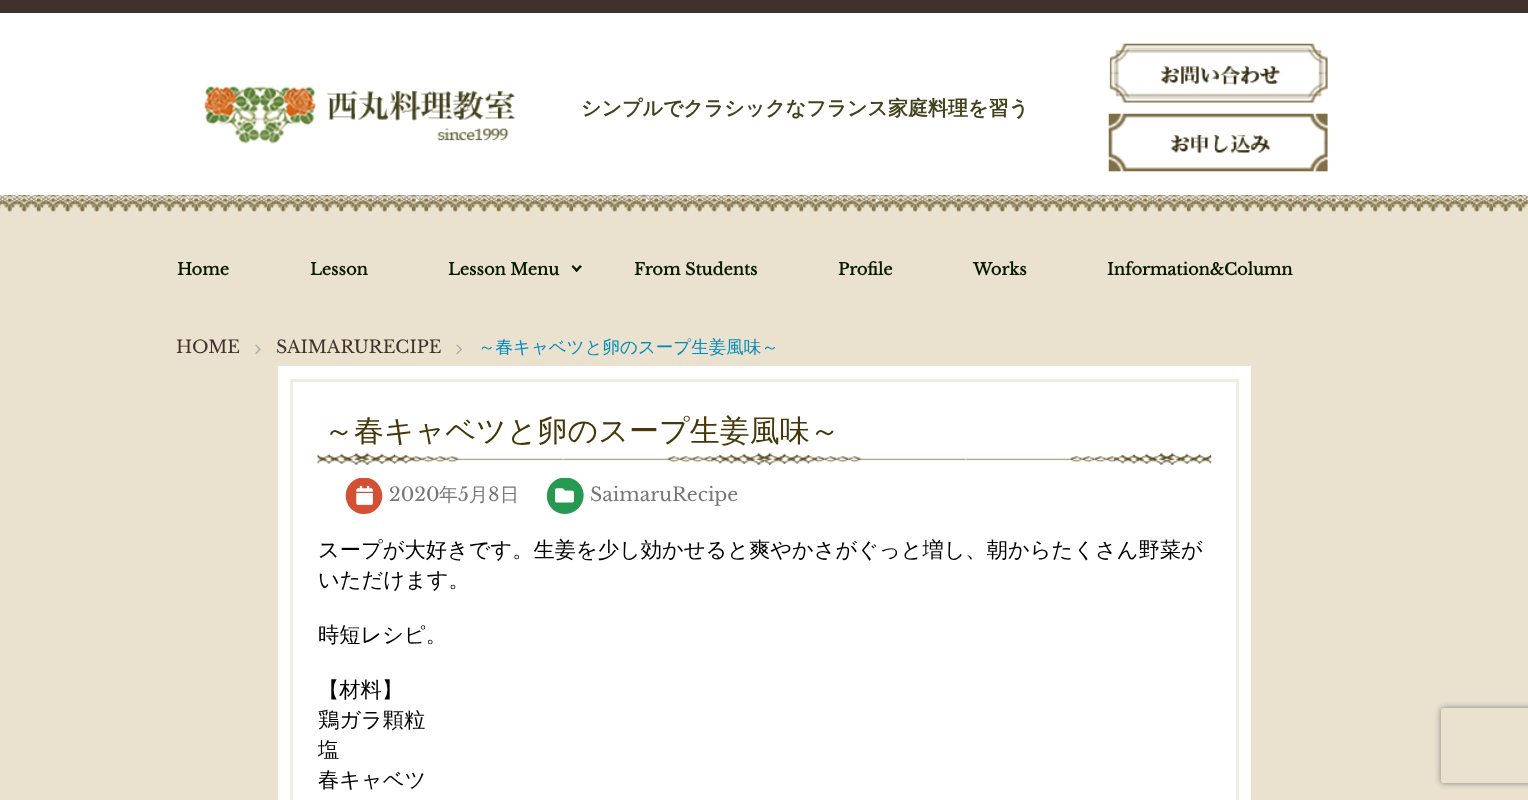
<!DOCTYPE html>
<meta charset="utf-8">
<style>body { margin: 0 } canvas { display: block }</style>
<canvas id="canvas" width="1528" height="800"></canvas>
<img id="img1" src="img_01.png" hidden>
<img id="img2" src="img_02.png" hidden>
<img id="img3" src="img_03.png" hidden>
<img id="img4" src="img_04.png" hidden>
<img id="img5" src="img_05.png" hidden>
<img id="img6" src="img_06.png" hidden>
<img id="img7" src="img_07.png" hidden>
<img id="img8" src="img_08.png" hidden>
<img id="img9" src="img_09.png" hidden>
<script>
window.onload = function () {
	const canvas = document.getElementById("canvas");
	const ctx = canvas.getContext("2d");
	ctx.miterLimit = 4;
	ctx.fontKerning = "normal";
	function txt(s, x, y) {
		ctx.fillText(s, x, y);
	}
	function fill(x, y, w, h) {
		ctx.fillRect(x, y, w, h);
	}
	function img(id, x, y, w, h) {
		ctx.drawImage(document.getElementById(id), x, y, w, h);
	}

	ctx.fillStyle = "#EAE1CF";
	fill(0, 0, 1528, 800);
	ctx.fillStyle = "#FFFFFF";
	fill(0, 13, 1528, 198);
	img("img1", 0, 195, 1528, 17);
	ctx.fillStyle = "#3F312B";
	fill(0, 0, 1528, 13);
	img("img2", 203, 86, 313, 58);
	img("img3", 1109, 43, 219, 60);
	img("img4", 1108, 113, 220, 59);
	ctx.fillStyle = "#081A00";
	ctx.beginPath();
	ctx.moveTo(582, 266.5);
	ctx.lineTo(576.5, 272);
	ctx.lineTo(575, 270.5);
	ctx.lineTo(580, 265);
	ctx.closePath();
	ctx.fill();
	ctx.beginPath();
	ctx.moveTo(578.5, 270.5);
	ctx.lineTo(576.5, 272);
	ctx.lineTo(571.5, 266.5);
	ctx.lineTo(573, 265);
	ctx.closePath();
	ctx.fill();
	img("img5", 255, 344, 6, 11);
	img("img6", 456, 344, 6, 11);
	ctx.fillStyle = "#FFFFFF";
	fill(278, 366, 973, 434);
	ctx.strokeStyle = "#F1EBE2";
	ctx.lineWidth = 3;
	ctx.strokeRect(291.5, 380.5, 946, 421);
	img("img7", 317, 452, 895, 13);
	ctx.save();
	ctx.beginPath();
	ctx.rect(318, 478, 893, 37);
	ctx.clip();
	ctx.fillStyle = "#D35034";
	ctx.beginPath();
	ctx.moveTo(364, 477.5);
	ctx.bezierCurveTo(360, 477.5, 356, 478.5, 353, 481);
	ctx.bezierCurveTo(339, 492, 346.5, 514, 364, 514);
	ctx.bezierCurveTo(368, 514, 372, 513, 375, 510.5);
	ctx.bezierCurveTo(389, 499.5, 381.5, 477.5, 364, 477.5);
	ctx.closePath();
	ctx.fill();
	ctx.restore();
	img("img8", 356, 485, 17, 20);
	ctx.save();
	ctx.beginPath();
	ctx.rect(318, 478, 893, 37);
	ctx.clip();
	ctx.fillStyle = "#269951";
	ctx.beginPath();
	ctx.moveTo(565, 477.5);
	ctx.bezierCurveTo(548, 477.5, 540, 499.5, 554, 510.5);
	ctx.bezierCurveTo(557.5, 513, 561, 514, 565, 514);
	ctx.bezierCurveTo(582.5, 514, 590.5, 492, 576.5, 481);
	ctx.bezierCurveTo(573, 478.5, 569.5, 477.5, 565, 477.5);
	ctx.closePath();
	ctx.fill();
	ctx.restore();
	img("img9", 555, 488, 19, 15);
	ctx.save();
	ctx.beginPath();
	ctx.moveTo(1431, 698);
	ctx.lineTo(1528, 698);
	ctx.lineTo(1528, 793);
	ctx.lineTo(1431, 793);
	ctx.closePath();
	ctx.moveTo(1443.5, 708);
	ctx.lineTo(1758.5, 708);
	ctx.bezierCurveTo(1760, 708, 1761, 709, 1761, 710.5);
	ctx.lineTo(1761, 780.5);
	ctx.bezierCurveTo(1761, 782, 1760, 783, 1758.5, 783);
	ctx.lineTo(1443.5, 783);
	ctx.bezierCurveTo(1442, 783, 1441, 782, 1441, 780.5);
	ctx.lineTo(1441, 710.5);
	ctx.bezierCurveTo(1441, 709, 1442, 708, 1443.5, 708);
	ctx.closePath();
	ctx.clip("evenodd");
	ctx.fillStyle = "#808080";
	ctx.filter = "blur(3px)";
	ctx.beginPath();
	ctx.roundRect(1441, 708, 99, 75, 2.5);
	ctx.fill();
	ctx.filter = "none";
	ctx.restore();
	ctx.font = "bold 20px WenQuanYi Zen Hei";
	ctx.fillStyle = "#43421C";
	txt("シンプルでクラシックなフランス家庭料理を習う", 581, 115);
	ctx.font = "bold 16.25px Libre Baskerville";
	ctx.fillStyle = "#081A00";
	txt("Home", 177, 275);
	txt("Lesson", 310, 275);
	txt("Lesson Menu", 448, 275);
	txt("From Students", 634, 275);
	txt("Profile", 838, 275);
	txt("Works", 973, 275);
	txt("Information&Column", 1107, 275);
	ctx.font = "17.5px Libre Baskerville";
	ctx.fillStyle = "#3F312B";
	txt("HOME", 176, 353);
	txt("SAIMARURECIPE", 276, 353);
	ctx.font = "500 17.5px WenQuanYi Zen Hei";
	ctx.fillStyle = "#008CBA";
	txt("～春キャベツと卵のスープ生姜風味～", 478, 353);
	ctx.font = "500 30px WenQuanYi Zen Hei";
	ctx.fillStyle = "#463608";
	txt("～春キャベツと卵のスープ生姜風味～", 324, 441);
	ctx.font = "19px Libre Baskerville";
	ctx.fillStyle = "#777777";
	txt("2020", 389, 501);
	ctx.font = "500 19px WenQuanYi Zen Hei";
	txt("年", 439, 501);
	ctx.font = "19px Libre Baskerville";
	txt("5", 458, 501);
	ctx.font = "500 19px WenQuanYi Zen Hei";
	txt("月", 469, 501);
	ctx.font = "19px Libre Baskerville";
	txt("8", 488, 501);
	ctx.font = "500 19px WenQuanYi Zen Hei";
	txt("日", 500, 501);
	ctx.font = "19px Libre Baskerville";
	txt("SaimaruRecipe", 590, 501);
	ctx.font = "500 21.25px WenQuanYi Zen Hei";
	ctx.fillStyle = "#000000";
	txt("スープが大好きです。生姜を少し効かせると爽やかさがぐっと増し、朝からたくさん野菜が", 318, 557);
	txt("いただけます。", 318, 587);
	txt("時短レシピ。", 318, 642);
	txt("【材料】", 318, 697);
	txt("鶏ガラ顆粒", 318, 727);
	txt("塩", 318, 757);
	txt("春キャベツ", 318, 787);
};
</script>
